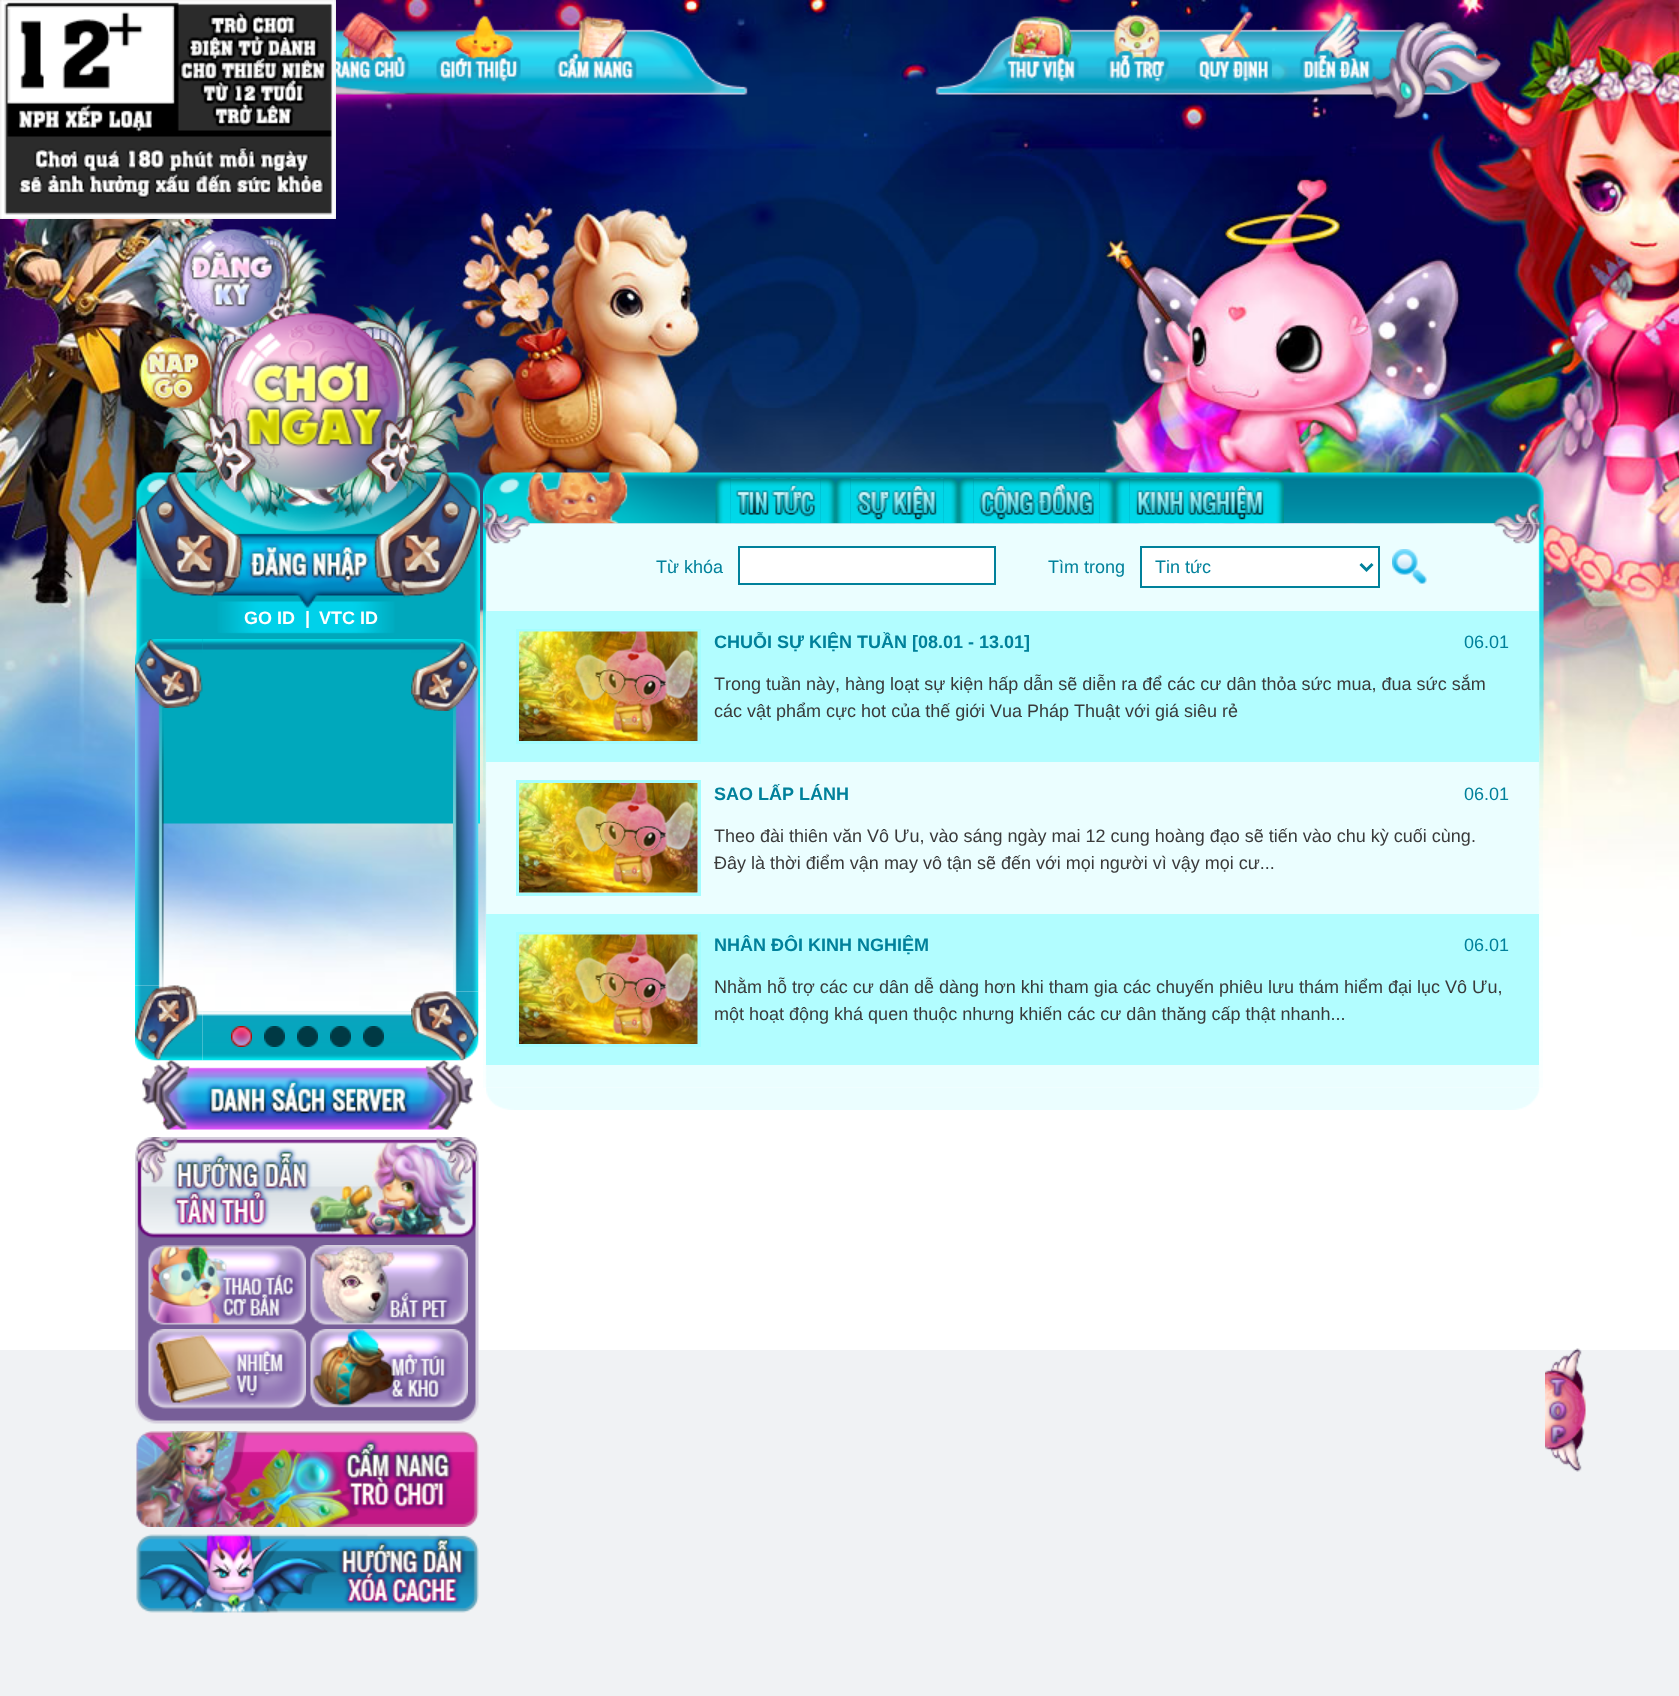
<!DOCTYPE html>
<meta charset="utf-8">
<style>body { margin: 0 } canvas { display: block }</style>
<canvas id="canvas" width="1679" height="1696"></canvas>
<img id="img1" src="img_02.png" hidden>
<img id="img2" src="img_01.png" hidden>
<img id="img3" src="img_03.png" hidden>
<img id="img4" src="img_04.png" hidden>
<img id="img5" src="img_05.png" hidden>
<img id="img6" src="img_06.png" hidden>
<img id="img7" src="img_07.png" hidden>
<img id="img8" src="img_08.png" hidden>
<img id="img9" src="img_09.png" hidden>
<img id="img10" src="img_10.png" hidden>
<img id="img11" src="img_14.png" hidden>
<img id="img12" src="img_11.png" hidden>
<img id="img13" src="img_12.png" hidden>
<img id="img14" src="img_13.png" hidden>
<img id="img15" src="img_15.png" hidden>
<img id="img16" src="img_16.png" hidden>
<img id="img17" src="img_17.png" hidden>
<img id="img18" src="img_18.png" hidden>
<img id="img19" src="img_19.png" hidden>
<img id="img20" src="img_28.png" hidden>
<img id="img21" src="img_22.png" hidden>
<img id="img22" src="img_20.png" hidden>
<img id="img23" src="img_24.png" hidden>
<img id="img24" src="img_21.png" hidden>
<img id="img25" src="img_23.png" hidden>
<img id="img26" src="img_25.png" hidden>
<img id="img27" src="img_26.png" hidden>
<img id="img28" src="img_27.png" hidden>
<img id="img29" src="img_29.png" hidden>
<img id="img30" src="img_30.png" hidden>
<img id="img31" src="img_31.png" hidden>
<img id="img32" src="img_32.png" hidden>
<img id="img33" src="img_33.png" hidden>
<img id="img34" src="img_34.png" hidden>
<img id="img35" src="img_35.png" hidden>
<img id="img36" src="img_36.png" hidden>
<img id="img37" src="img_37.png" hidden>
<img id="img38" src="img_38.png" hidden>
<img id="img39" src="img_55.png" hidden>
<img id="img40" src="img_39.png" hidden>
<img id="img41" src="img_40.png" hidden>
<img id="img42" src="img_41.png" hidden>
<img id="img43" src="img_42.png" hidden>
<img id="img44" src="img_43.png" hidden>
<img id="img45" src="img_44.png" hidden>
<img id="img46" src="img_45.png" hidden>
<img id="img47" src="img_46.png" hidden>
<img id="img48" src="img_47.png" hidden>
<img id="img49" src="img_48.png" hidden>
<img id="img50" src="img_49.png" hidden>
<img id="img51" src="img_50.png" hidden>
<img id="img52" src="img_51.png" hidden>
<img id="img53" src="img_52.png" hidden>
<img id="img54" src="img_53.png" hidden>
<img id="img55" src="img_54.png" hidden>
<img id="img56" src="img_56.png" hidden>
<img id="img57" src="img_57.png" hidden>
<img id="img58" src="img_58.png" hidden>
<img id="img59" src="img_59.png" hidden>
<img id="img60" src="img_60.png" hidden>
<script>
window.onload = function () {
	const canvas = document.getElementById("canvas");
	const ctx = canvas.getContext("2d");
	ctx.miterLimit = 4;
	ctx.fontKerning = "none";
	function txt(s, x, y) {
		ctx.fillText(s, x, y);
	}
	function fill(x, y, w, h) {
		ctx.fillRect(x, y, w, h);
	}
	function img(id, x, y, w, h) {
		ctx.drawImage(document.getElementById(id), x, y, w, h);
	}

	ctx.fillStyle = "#F0F2F4";
	fill(0, 0, 1679, 1696);
	img("img1", 0, 0, 1679, 1350);
	img("img2", 0, 0, 336, 219);
	img("img3", 336, 20, 1166, 99);
	img("img4", 336, 11, 74, 71);
	img("img5", 436, 15, 85, 70);
	img("img6", 553, 16, 84, 66);
	img("img7", 1003, 16, 76, 69);
	img("img8", 1105, 14, 64, 71);
	img("img9", 1195, 11, 77, 74);
	img("img10", 1299, 10, 75, 73);
	img("img11", 136, 225, 344, 599);
	img("img12", 187, 246, 90, 63);
	img("img13", 145, 351, 56, 50);
	img("img14", 242, 355, 144, 94);
	img("img15", 135, 472, 345, 162);
	img("img16", 246, 542, 126, 43);
	img("img17", 135, 639, 68, 69);
	img("img18", 202, 639, 209, 11);
	img("img19", 411, 639, 68, 72);
	img("img20", 142, 1060, 331, 70);
	img("img21", 135, 985, 68, 76);
	img("img22", 135, 708, 29, 278);
	img("img23", 411, 991, 68, 70);
	img("img24", 453, 711, 26, 281);
	img("img25", 202, 1011, 209, 50);
	img("img26", 231, 1026, 21, 21);
	img("img27", 264, 1026, 21, 21);
	img("img28", 297, 1026, 21, 21);
	img("img28", 330, 1026, 21, 21);
	img("img28", 363, 1026, 21, 21);
	img("img29", 135, 1137, 344, 287);
	img("img30", 136, 1137, 341, 101);
	img("img31", 148, 1245, 158, 80);
	img("img32", 310, 1245, 158, 80);
	img("img33", 148, 1329, 158, 80);
	img("img34", 310, 1329, 158, 79);
	img("img35", 136, 1431, 343, 96);
	img("img36", 136, 1534, 343, 79);
	img("img37", 486, 1087, 1054, 23);
	img("img38", 483, 472, 1061, 52);
	img("img39", 483, 523, 1060, 565);
	img("img40", 715, 478, 16, 46);
	img("img41", 820, 478, 16, 46);
	img("img42", 730, 478, 91, 46);
	img("img43", 735, 484, 81, 33);
	img("img44", 835, 478, 16, 46);
	img("img45", 943, 478, 16, 46);
	img("img46", 850, 478, 94, 46);
	img("img47", 856, 484, 81, 36);
	img("img48", 958, 478, 16, 46);
	img("img49", 1099, 478, 16, 46);
	img("img50", 973, 478, 127, 46);
	img("img51", 979, 483, 115, 37);
	img("img52", 1114, 478, 16, 46);
	img("img53", 1269, 478, 15, 46);
	img("img54", 1129, 478, 140, 46);
	img("img55", 1135, 484, 130, 36);
	img("img56", 483, 523, 1061, 285);
	ctx.fillStyle = "#FFFFFF";
	ctx.beginPath();
	ctx.rect(739, 547, 256, 37);
	ctx.fill();
	ctx.strokeStyle = "#00819B";
	ctx.lineWidth = 2;
	ctx.stroke();
	ctx.beginPath();
	ctx.rect(1141, 547, 238, 40);
	ctx.fill();
	ctx.stroke();
	ctx.beginPath();
	ctx.moveTo(1360.5, 564);
	ctx.lineTo(1366.5, 570);
	ctx.lineTo(1372.5, 564);
	ctx.lineWidth = 3;
	ctx.stroke();
	img("img57", 1392, 549, 35, 35);
	ctx.fillStyle = "#B2FDFF";
	fill(486, 611, 1053, 151);
	ctx.strokeStyle = "#A4FDFF";
	ctx.strokeRect(517.5, 630.5, 182, 112);
	img("img58", 519, 631, 179, 110);
	ctx.strokeRect(517.5, 781.5, 182, 113);
	img("img59", 519, 783, 179, 110);
	fill(486, 914, 1053, 151);
	ctx.strokeRect(517.5, 933.5, 182, 112);
	img("img58", 519, 934, 179, 110);
	img("img60", 1545, 1348, 41, 124);
	ctx.font = "bold 18px Liberation Sans";
	ctx.fillStyle = "#FFFFFF";
	txt("GO ID", 244, 624);
	txt("|", 305, 624);
	txt("VTC ID", 319, 624);
	ctx.font = "18px Liberation Sans";
	ctx.fillStyle = "#00819B";
	txt("Từ khóa", 656, 573);
	txt("Tìm trong", 1048, 573);
	txt("Tin tức", 1155, 573);
	ctx.font = "bold 18px Liberation Sans";
	txt("CHUỖI SỰ KIỆN TUẦN [08.01 - 13.01]", 714, 648);
	ctx.font = "18px Liberation Sans";
	txt("06.01", 1464, 648);
	ctx.fillStyle = "#3A3A3A";
	txt("Trong tuần này, hàng loạt sự kiện hấp dẫn sẽ diễn ra để các cư dân thỏa sức mua, đua sức sắm", 714, 690);
	txt("các vật phẩm cực hot của thế giới Vua Pháp Thuật với giá siêu rẻ", 714, 717);
	ctx.font = "bold 18px Liberation Sans";
	ctx.fillStyle = "#00819B";
	txt("SAO LẤP LÁNH", 714, 800);
	ctx.font = "18px Liberation Sans";
	txt("06.01", 1464, 800);
	ctx.fillStyle = "#3A3A3A";
	txt("Theo đài thiên văn Vô Ưu, vào sáng ngày mai 12 cung hoàng đạo sẽ tiến vào chu kỳ cuối cùng.", 714, 842);
	txt("Đây là thời điểm vận may vô tận sẽ đến với mọi người vì vậy mọi cư...", 714, 869);
	ctx.font = "bold 18px Liberation Sans";
	ctx.fillStyle = "#00819B";
	txt("NHÂN ĐÔI KINH NGHIỆM", 714, 951);
	ctx.font = "18px Liberation Sans";
	txt("06.01", 1464, 951);
	ctx.fillStyle = "#3A3A3A";
	txt("Nhằm hỗ trợ các cư dân dễ dàng hơn khi tham gia các chuyến phiêu lưu thám hiểm đại lục Vô Ưu,", 714, 993);
	txt("một hoạt động khá quen thuộc nhưng khiến các cư dân thăng cấp thật nhanh...", 714, 1020);
};
</script>
